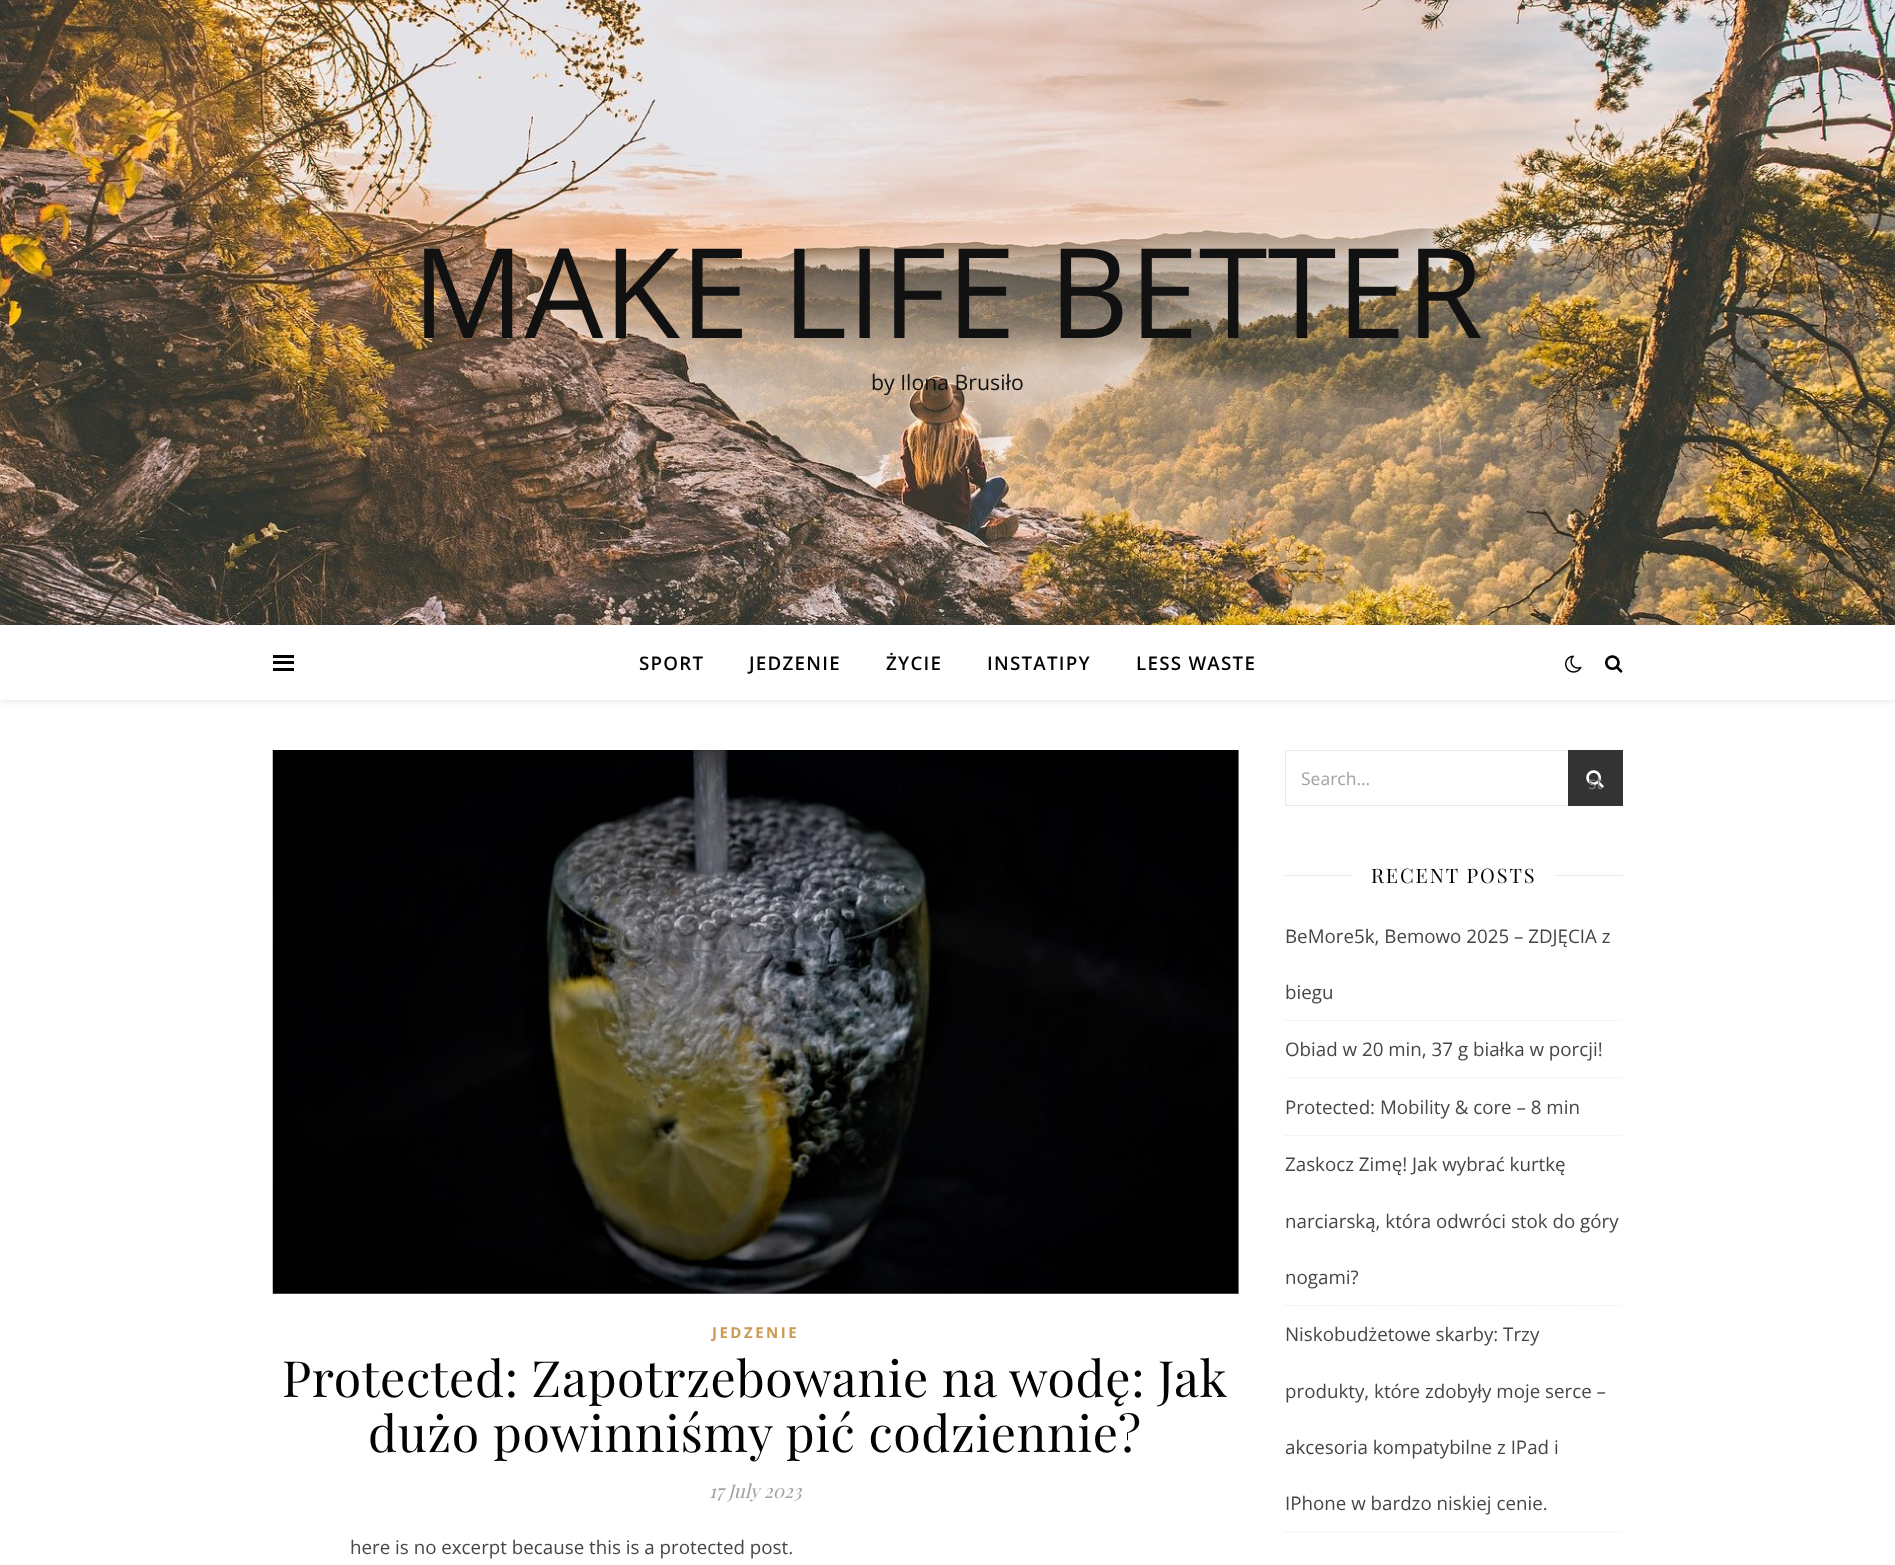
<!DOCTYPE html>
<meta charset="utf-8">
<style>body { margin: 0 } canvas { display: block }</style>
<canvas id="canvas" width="1895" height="1565"></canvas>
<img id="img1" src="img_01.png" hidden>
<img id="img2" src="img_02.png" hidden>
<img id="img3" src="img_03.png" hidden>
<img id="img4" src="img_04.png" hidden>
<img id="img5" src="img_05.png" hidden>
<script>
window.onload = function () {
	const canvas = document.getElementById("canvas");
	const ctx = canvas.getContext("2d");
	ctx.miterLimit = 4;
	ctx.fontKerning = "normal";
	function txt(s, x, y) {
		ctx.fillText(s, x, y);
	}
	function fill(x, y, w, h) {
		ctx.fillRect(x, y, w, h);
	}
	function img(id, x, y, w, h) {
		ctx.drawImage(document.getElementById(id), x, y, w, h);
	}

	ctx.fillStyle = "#FFFFFF";
	fill(0, 0, 1895, 1565);
	img("img1", 0, 0, 1895, 625);
	ctx.save();
	ctx.beginPath();
	ctx.moveTo(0, 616);
	ctx.lineTo(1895, 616);
	ctx.lineTo(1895, 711);
	ctx.lineTo(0, 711);
	ctx.closePath();
	ctx.moveTo(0, 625);
	ctx.lineTo(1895, 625);
	ctx.lineTo(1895, 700);
	ctx.lineTo(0, 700);
	ctx.closePath();
	ctx.clip("evenodd");
	ctx.fillStyle = "rgba(0, 0, 0, 0.1)";
	ctx.filter = "blur(3px)";
	ctx.beginPath();
	ctx.rect(0, 626, 1895, 75);
	ctx.fill();
	ctx.filter = "none";
	ctx.restore();
	ctx.fillStyle = "#000000";
	fill(273, 655, 21, 3);
	fill(273, 661, 21, 3);
	fill(273, 668, 21, 3);
	img("img2", 1565, 655, 17, 18);
	img("img3", 1605, 655, 18, 18);
	img("img4", 272, 750, 967, 544);
	ctx.strokeStyle = "#E8E8E8";
	ctx.strokeRect(1285.5, 750.5, 337, 55);
	ctx.fillStyle = "#333333";
	fill(1568, 750, 55, 56);
	img("img5", 1586, 770, 18, 18);
	ctx.fillStyle = "#E8E8E8";
	fill(1285, 875, 68, 1);
	fill(1555, 875, 68, 1);
	ctx.beginPath();
	ctx.moveTo(1285, 1020.5);
	ctx.lineTo(1622.5, 1020.5);
	ctx.lineWidth = 1.2;
	ctx.setLineDash([1.25, 1.25]);
	ctx.stroke();
	ctx.beginPath();
	ctx.moveTo(1285, 1078);
	ctx.lineTo(1622.5, 1078);
	ctx.stroke();
	ctx.beginPath();
	ctx.moveTo(1285, 1135.5);
	ctx.lineTo(1622.5, 1135.5);
	ctx.stroke();
	ctx.beginPath();
	ctx.moveTo(1285, 1305.5);
	ctx.lineTo(1622.5, 1305.5);
	ctx.stroke();
	ctx.beginPath();
	ctx.moveTo(1285, 1532);
	ctx.lineTo(1622.5, 1532);
	ctx.stroke();
	ctx.font = "125px Open Sans";
	ctx.fillStyle = "#111111";
	txt("MAKE LIFE BETTER", 412, 338);
	ctx.font = "21.25px Open Sans";
	txt("by Ilona Brusiło", 871, 390);
	ctx.letterSpacing = "1.25px";
	ctx.font = "600 18.75px Open Sans";
	ctx.fillStyle = "#030303";
	txt("SPORT", 639, 670);
	txt("JEDZENIE", 749, 670);
	txt("ŻYCIE", 886, 670);
	txt("INSTATIPY", 987, 670);
	txt("LESS WASTE", 1136, 670);
	ctx.letterSpacing = "2.5px";
	ctx.font = "bold 15px Open Sans";
	ctx.fillStyle = "#CA9B52";
	txt("JEDZENIE", 712, 1338);
	ctx.letterSpacing = "0.6px";
	ctx.font = "50px Playfair Display";
	ctx.fillStyle = "#030303";
	txt("Protected: Zapotrzebowanie na wodę: Jak", 282, 1397);
	txt("dużo powinniśmy pić codziennie?", 368, 1452);
	ctx.letterSpacing = "0px";
	ctx.font = "italic 18.75px Playfair Display";
	ctx.fillStyle = "#A1A1A1";
	txt("17 July 2023", 709, 1498);
	ctx.font = "18.75px Open Sans";
	ctx.fillStyle = "#464646";
	txt("here is no excerpt because this is a protected post.", 350, 1554);
	ctx.font = "17.5px Open Sans";
	ctx.fillStyle = "#A1A1A1";
	txt("Search...", 1301, 785);
	ctx.fillStyle = "#7C7C7C";
	txt("st", 1588, 789);
	ctx.letterSpacing = "1.9px";
	ctx.font = "20px Playfair Display";
	ctx.fillStyle = "#030303";
	txt("RECENT POSTS", 1371, 883);
	ctx.letterSpacing = "0px";
	ctx.font = "18.75px Open Sans";
	ctx.fillStyle = "#464646";
	txt("BeMore5k, Bemowo 2025 – ZDJĘCIA z", 1285, 943);
	txt("biegu", 1285, 999);
	txt("Obiad w 20 min, 37 g białka w porcji!", 1285, 1056);
	txt("Protected: Mobility & core – 8 min", 1285, 1114);
	txt("Zaskocz Zimę! Jak wybrać kurtkę", 1285, 1171);
	txt("narciarską, która odwróci stok do góry", 1285, 1228);
	txt("nogami?", 1285, 1284);
	txt("Niskobudżetowe skarby: Trzy", 1285, 1341);
	txt("produkty, które zdobyły moje serce –", 1285, 1398);
	txt("akcesoria kompatybilne z IPad i", 1285, 1454);
	txt("IPhone w bardzo niskiej cenie.", 1285, 1510);
};
</script>
